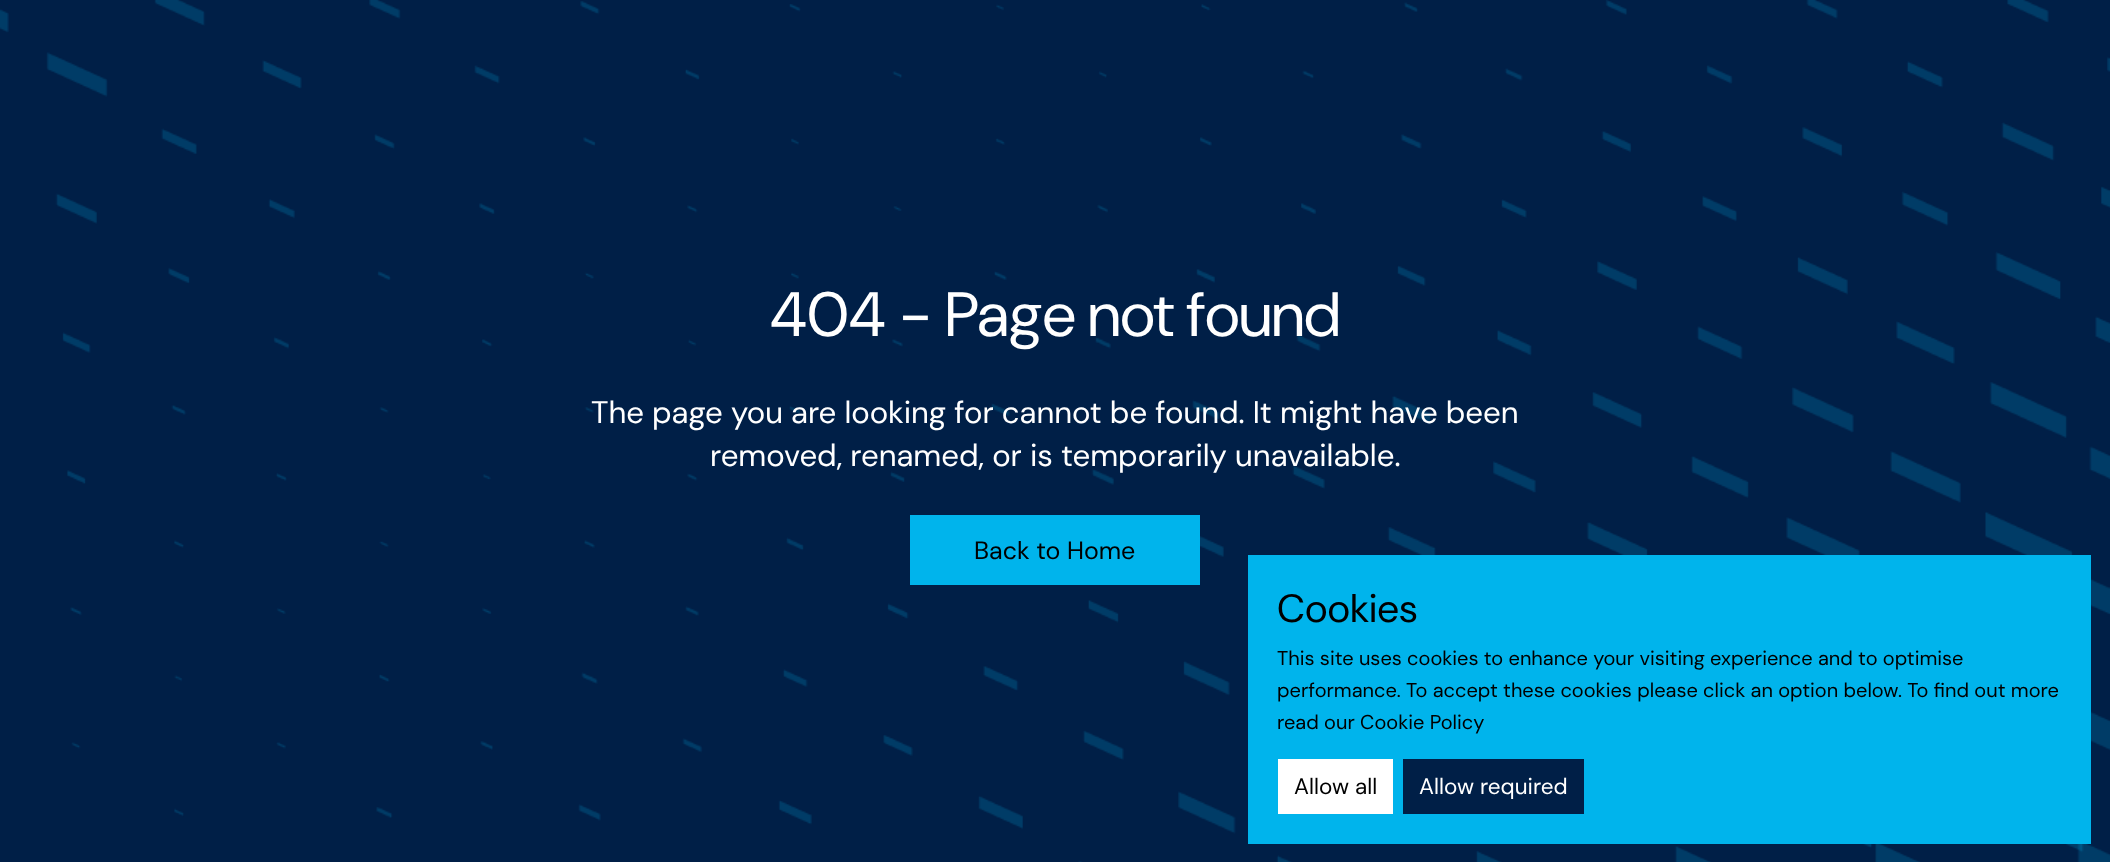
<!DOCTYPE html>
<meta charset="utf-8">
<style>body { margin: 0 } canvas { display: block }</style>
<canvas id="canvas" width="2110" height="862"></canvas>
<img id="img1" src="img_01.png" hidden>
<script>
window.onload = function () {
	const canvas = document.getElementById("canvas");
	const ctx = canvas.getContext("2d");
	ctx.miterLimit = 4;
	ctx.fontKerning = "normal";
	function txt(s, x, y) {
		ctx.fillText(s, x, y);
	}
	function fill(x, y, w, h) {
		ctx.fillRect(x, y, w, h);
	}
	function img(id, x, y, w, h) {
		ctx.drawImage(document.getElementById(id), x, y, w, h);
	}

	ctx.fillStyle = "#001F47";
	fill(0, 0, 2110, 862);
	img("img1", 0, 0, 2110, 862);
	ctx.fillStyle = "#00B4EC";
	fill(910, 515, 290, 70);
	fill(1248, 555, 843, 289);
	ctx.fillStyle = "#FFFFFF";
	fill(1278, 759, 115, 55);
	ctx.fillStyle = "#001F47";
	fill(1403, 759, 181, 55);
	ctx.font = "62.5px DM Sans";
	ctx.fillStyle = "#FFFFFF";
	txt("404 - Page not found", 770, 336);
	ctx.font = "31.25px 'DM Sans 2'";
	txt("The page you are looking for cannot be found. It might have been", 591, 423);
	txt("removed, renamed, or is temporarily unavailable.", 710, 466);
	ctx.font = "25px 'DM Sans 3'";
	ctx.fillStyle = "#000000";
	txt("Back to Home", 974, 559);
	ctx.font = "39.5px 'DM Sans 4'";
	txt("Cookies", 1277, 622);
	ctx.font = "20px 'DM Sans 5'";
	txt("This site uses cookies to enhance your visiting experience and to optimise", 1277, 665);
	txt("performance. To accept these cookies please click an option below. To find out more", 1277, 697);
	txt("read our Cookie Policy", 1277, 729);
	ctx.font = "22.5px 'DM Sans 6'";
	txt("Allow all", 1294, 794);
	ctx.fillStyle = "#FFFFFF";
	txt("Allow required", 1419, 794);
};
</script>
